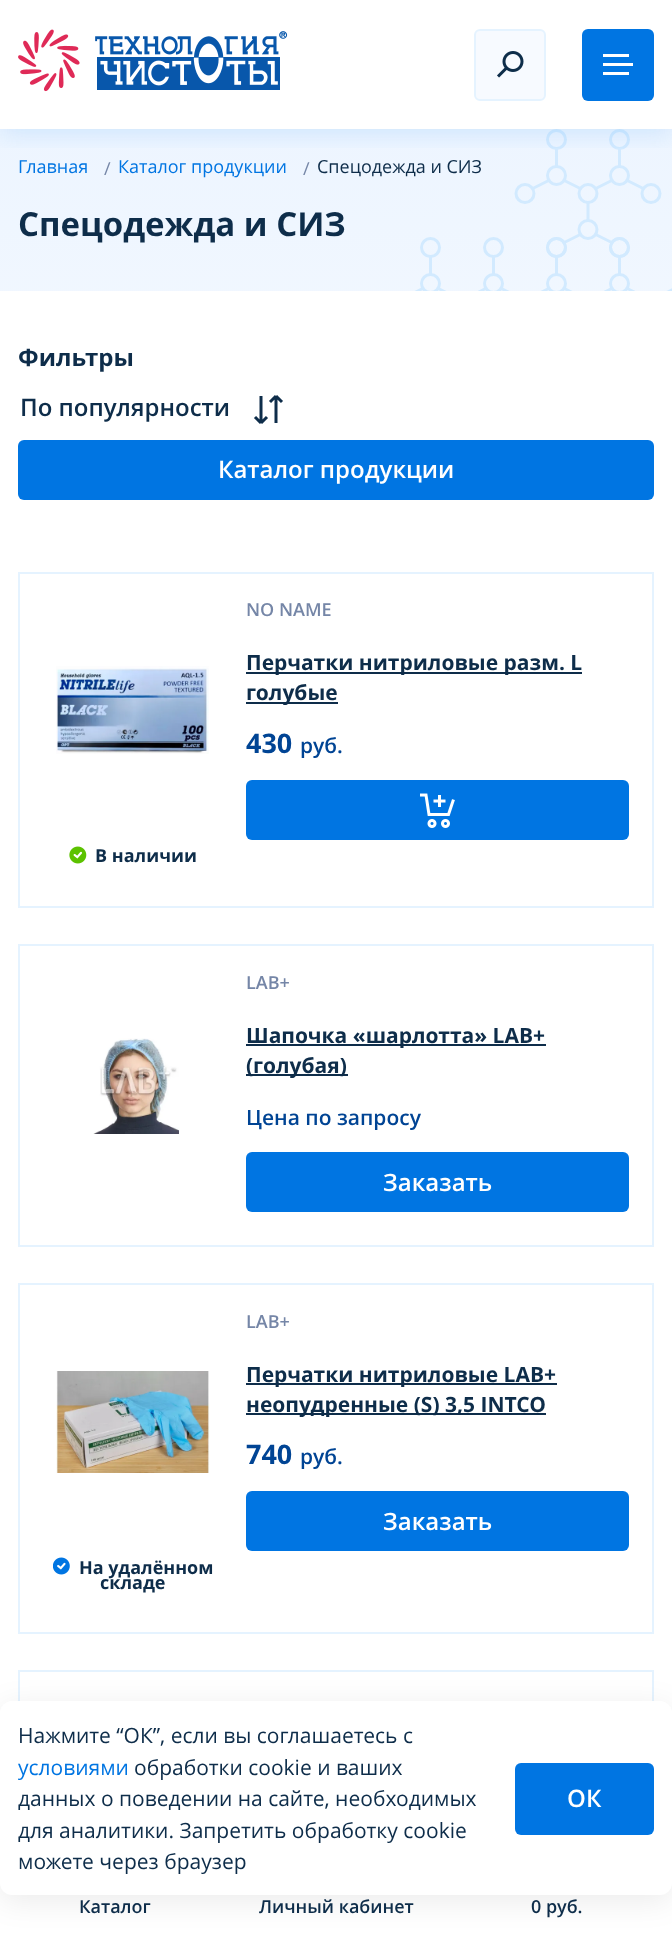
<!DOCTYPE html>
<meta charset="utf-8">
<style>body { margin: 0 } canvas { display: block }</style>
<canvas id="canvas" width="672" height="1939"></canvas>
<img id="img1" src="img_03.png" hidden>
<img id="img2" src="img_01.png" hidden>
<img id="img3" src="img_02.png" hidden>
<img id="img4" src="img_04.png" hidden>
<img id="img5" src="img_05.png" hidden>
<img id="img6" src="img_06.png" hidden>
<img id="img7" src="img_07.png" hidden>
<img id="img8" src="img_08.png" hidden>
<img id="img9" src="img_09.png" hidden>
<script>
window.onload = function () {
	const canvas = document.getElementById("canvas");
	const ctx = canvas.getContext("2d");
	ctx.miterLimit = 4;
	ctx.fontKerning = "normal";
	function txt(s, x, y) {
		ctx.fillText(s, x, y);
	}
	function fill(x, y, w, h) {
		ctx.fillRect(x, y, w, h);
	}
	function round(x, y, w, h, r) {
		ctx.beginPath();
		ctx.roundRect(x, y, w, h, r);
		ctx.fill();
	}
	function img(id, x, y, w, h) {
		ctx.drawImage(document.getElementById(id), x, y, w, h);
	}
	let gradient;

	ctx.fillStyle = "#FFFFFF";
	fill(0, 0, 672, 1939);
	gradient = ctx.createLinearGradient(336, 129, 336, 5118);
	gradient.addColorStop(0, "#EDF5FF");
	gradient.addColorStop(0.18, "#FFFFFF");
	ctx.fillStyle = gradient;
	fill(0, 129, 672, 162);
	img("img1", 414, 129, 258, 162);
	ctx.save();
	ctx.beginPath();
	ctx.rect(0, 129, 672, 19);
	ctx.clip();
	ctx.fillStyle = "rgba(58, 154, 243, 0.17)";
	ctx.filter = "blur(12px)";
	ctx.beginPath();
	ctx.rect(0, 5, 672, 129);
	ctx.fill();
	ctx.filter = "none";
	ctx.restore();
	img("img2", 18, 29, 270, 63);
	ctx.fillStyle = "#F7FAFF";
	ctx.beginPath();
	ctx.roundRect(475, 30, 70, 70, 5);
	ctx.fill();
	ctx.strokeStyle = "#E5F3FF";
	ctx.lineWidth = 2;
	ctx.stroke();
	img("img3", 497, 51, 27, 27);
	ctx.fillStyle = "#0075E2";
	round(582, 29, 72, 72, 6);
	ctx.fillStyle = "#FFFFFF";
	fill(603, 63, 30, 3);
	fill(603, 54, 26, 3);
	fill(603, 72, 26, 3);
	ctx.beginPath();
	ctx.moveTo(270, 402);
	ctx.lineTo(276, 396);
	ctx.moveTo(282, 402);
	ctx.lineTo(276, 396);
	ctx.moveTo(276, 396);
	ctx.lineTo(276, 423);
	ctx.moveTo(255, 417);
	ctx.lineTo(261, 423);
	ctx.moveTo(267, 417);
	ctx.lineTo(261, 423);
	ctx.moveTo(261, 423);
	ctx.lineTo(261, 396);
	ctx.strokeStyle = "#0E2D4A";
	ctx.lineWidth = 3;
	ctx.stroke();
	ctx.fillStyle = "#0075E2";
	round(18, 440, 636, 60, 6);
	ctx.strokeStyle = "#E5F3FF";
	ctx.lineWidth = 2;
	ctx.strokeRect(19, 573, 634, 334);
	ctx.fillStyle = "#0E2D4A";
	fill(246, 672, 336, 2);
	fill(246, 702, 92, 2);
	ctx.fillStyle = "#0075E2";
	round(246, 780, 383, 60, 6);
	img("img4", 420, 793, 35, 35);
	img("img5", 56, 666, 153, 88);
	img("img6", 69, 846, 18, 18);
	ctx.strokeRect(19, 945, 634, 301);
	img("img7", 93, 1038, 87, 96);
	ctx.fillStyle = "#0E2D4A";
	fill(246, 1044, 300, 2);
	fill(246, 1074, 102, 2);
	ctx.fillStyle = "#0075E2";
	round(246, 1152, 383, 60, 6);
	ctx.strokeRect(19, 1284, 634, 349);
	ctx.fillStyle = "#0E2D4A";
	fill(246, 1383, 311, 2);
	fill(246, 1413, 300, 2);
	ctx.fillStyle = "#0075E2";
	round(246, 1491, 383, 60, 6);
	img("img8", 56, 1371, 154, 102);
	img("img9", 53, 1557, 17, 18);
	ctx.strokeRect(19, 1671, 634, 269);
	ctx.fillStyle = "#FFFFFF";
	fill(18, 1883, 636, 56);
	ctx.fillStyle = "rgba(0, 0, 0, 0.08)";
	ctx.filter = "blur(15px)";
	ctx.beginPath();
	ctx.roundRect(0, 1707, 672, 194, 12);
	ctx.fill();
	ctx.filter = "none";
	ctx.fillStyle = "#FFFFFF";
	round(0, 1701, 672, 194, 12);
	ctx.fillStyle = "#0075E2";
	round(515, 1763, 139, 72, 6);
	ctx.font = "18px Open Sans";
	txt("Главная", 18, 173);
	ctx.fillStyle = "#7586A7";
	txt("/", 104, 175);
	ctx.fillStyle = "#0075E2";
	txt("Каталог продукции", 118, 173);
	ctx.fillStyle = "#7586A7";
	txt("/", 303, 175);
	ctx.fillStyle = "#0E2D4A";
	txt("Спецодежда и СИЗ", 317, 173);
	ctx.font = "bold 33px Open Sans";
	txt("Спецодежда и СИЗ", 18, 236);
	ctx.font = "bold 24px Open Sans";
	txt("Фильтры", 18, 366);
	ctx.font = "600 24px Open Sans";
	txt("По популярности", 20, 416);
	ctx.fillStyle = "#FFFFFF";
	txt("Каталог продукции", 218, 478);
	ctx.font = "600 18px Open Sans";
	ctx.fillStyle = "#7586A7";
	txt("NO NAME", 246, 616);
	ctx.font = "bold 21px Open Sans";
	ctx.fillStyle = "#0E2D4A";
	txt("Перчатки нитриловые разм. L", 246, 670);
	txt("голубые", 246, 700);
	ctx.font = "bold 27px Open Sans";
	ctx.fillStyle = "#004494";
	txt("430", 246, 753);
	ctx.font = "600 21px Open Sans";
	txt("руб.", 300, 753);
	ctx.font = "bold 18px Open Sans";
	ctx.fillStyle = "#0E2D4A";
	txt("В наличии", 95, 862);
	ctx.font = "600 18px Open Sans";
	ctx.fillStyle = "#7586A7";
	txt("LAB+", 246, 989);
	ctx.font = "bold 21px Open Sans";
	ctx.fillStyle = "#0E2D4A";
	txt("Шапочка «шарлотта» LAB+", 246, 1043);
	txt("(голубая)", 246, 1073);
	ctx.font = "600 21px Open Sans";
	ctx.fillStyle = "#004494";
	txt("Цена по запросу", 246, 1125);
	ctx.font = "600 24px Open Sans";
	ctx.fillStyle = "#FFFFFF";
	txt("Заказать", 383, 1191);
	ctx.font = "600 18px Open Sans";
	ctx.fillStyle = "#7586A7";
	txt("LAB+", 246, 1328);
	ctx.font = "bold 21px Open Sans";
	ctx.fillStyle = "#0E2D4A";
	txt("Перчатки нитриловые LAB+", 246, 1382);
	txt("неопудренные (S) 3,5 INTCO", 246, 1412);
	ctx.font = "bold 27px Open Sans";
	ctx.fillStyle = "#004494";
	txt("740", 246, 1464);
	ctx.font = "600 21px Open Sans";
	txt("руб.", 300, 1464);
	ctx.font = "600 24px Open Sans";
	ctx.fillStyle = "#FFFFFF";
	txt("Заказать", 383, 1530);
	ctx.font = "bold 18px Open Sans";
	ctx.fillStyle = "#0E2D4A";
	txt("На удалённом", 79, 1574);
	txt("складе", 100, 1589);
	ctx.font = "21px Open Sans";
	txt("Нажмите “ОК”, если вы соглашаетесь с", 18, 1743);
	ctx.fillStyle = "#0075E2";
	txt("условиями", 18, 1775);
	ctx.fillStyle = "#0E2D4A";
	txt("обработки cookie и ваших", 134, 1775);
	txt("данных о поведении на сайте, необходимых", 18, 1806);
	txt("для аналитики. Запретить обработку cookie", 18, 1838);
	txt("можете через браузер", 18, 1869);
	ctx.font = "600 24px Open Sans";
	ctx.fillStyle = "#FFFFFF";
	txt("ОК", 567, 1807);
	ctx.font = "600 18px Open Sans";
	ctx.fillStyle = "#0E2D4A";
	txt("Каталог", 79, 1913);
	txt("Личный кабинет", 259, 1913);
	txt("0 руб.", 531, 1913);
};
</script>
